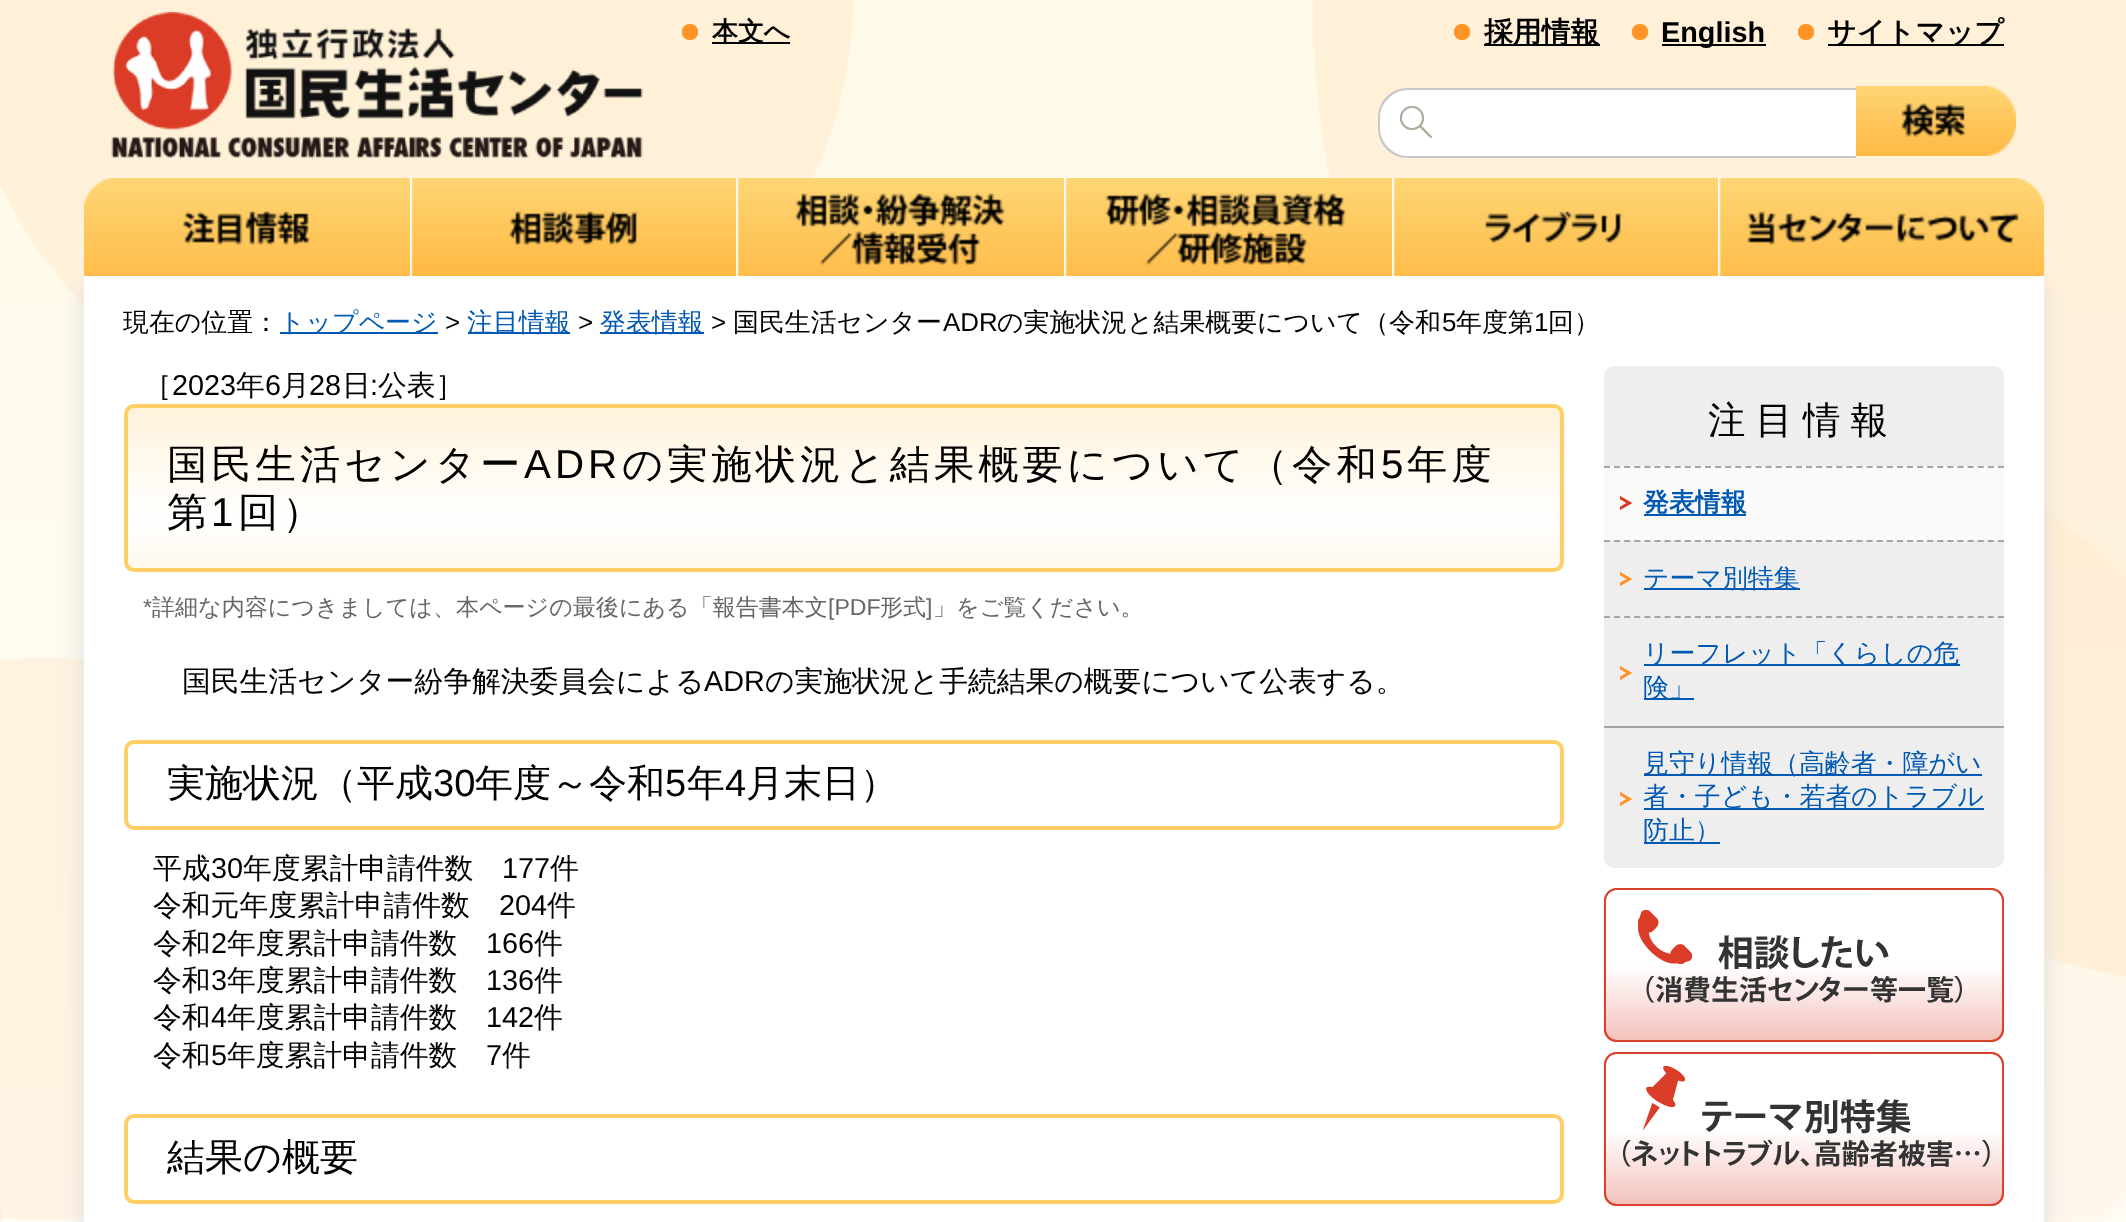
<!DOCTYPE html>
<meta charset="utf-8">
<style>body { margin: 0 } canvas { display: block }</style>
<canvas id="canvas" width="2126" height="1222"></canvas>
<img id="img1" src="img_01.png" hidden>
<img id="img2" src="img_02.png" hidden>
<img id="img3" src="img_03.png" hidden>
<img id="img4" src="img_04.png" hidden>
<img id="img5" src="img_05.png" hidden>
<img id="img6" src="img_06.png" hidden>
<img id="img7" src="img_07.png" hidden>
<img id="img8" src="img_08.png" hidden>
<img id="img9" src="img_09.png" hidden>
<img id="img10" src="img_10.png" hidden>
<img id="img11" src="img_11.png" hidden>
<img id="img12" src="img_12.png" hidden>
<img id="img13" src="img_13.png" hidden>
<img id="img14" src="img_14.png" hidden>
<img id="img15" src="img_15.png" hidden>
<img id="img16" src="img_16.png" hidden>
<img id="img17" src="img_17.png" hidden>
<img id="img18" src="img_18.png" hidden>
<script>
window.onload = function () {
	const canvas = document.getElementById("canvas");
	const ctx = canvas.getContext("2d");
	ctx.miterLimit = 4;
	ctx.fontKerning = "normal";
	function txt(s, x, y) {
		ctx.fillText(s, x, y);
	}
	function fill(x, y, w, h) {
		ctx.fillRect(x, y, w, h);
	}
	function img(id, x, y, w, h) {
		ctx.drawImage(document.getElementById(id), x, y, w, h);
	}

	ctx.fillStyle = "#FFFFFF";
	fill(0, 0, 2126, 1222);
	img("img1", 0, 0, 2126, 1222);
	img("img2", 111, 12, 532, 146);
	img("img3", 682, 24, 16, 16);
	ctx.fillStyle = "#000000";
	fill(712, 42, 78, 2);
	img("img3", 1454, 24, 16, 16);
	fill(1484, 44, 116, 2);
	img("img3", 1632, 24, 16, 16);
	fill(1662, 44, 104, 2);
	img("img3", 1798, 24, 16, 16);
	fill(1828, 44, 176, 2);
	ctx.fillStyle = "#FFFFFF";
	ctx.beginPath();
	ctx.roundRect(1378, 88, 478, 70, [30, 0, 0, 30]);
	ctx.fill();
	img("img4", 1400, 106, 32, 32);
	ctx.fillStyle = "#C8C8C8";
	ctx.beginPath();
	ctx.moveTo(1408, 88);
	ctx.lineTo(1856, 88);
	ctx.lineTo(1856, 158);
	ctx.lineTo(1408, 158);
	ctx.bezierCurveTo(1391, 158, 1378, 145, 1378, 128);
	ctx.lineTo(1378, 118);
	ctx.bezierCurveTo(1378, 101, 1391, 88, 1408, 88);
	ctx.closePath();
	ctx.moveTo(1408, 90);
	ctx.lineTo(1856, 90);
	ctx.lineTo(1856, 156);
	ctx.lineTo(1408, 156);
	ctx.bezierCurveTo(1393, 156, 1380, 143, 1380, 128);
	ctx.lineTo(1380, 118);
	ctx.bezierCurveTo(1380, 103, 1393, 90, 1408, 90);
	ctx.closePath();
	ctx.fill("evenodd");
	img("img5", 1856, 86, 160, 70);
	ctx.fillStyle = "#DDDDDD";
	ctx.filter = "blur(12px)";
	ctx.beginPath();
	ctx.roundRect(84, 276, 1960, 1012, 30);
	ctx.fill();
	ctx.filter = "none";
	img("img6", 84, 178, 326, 98);
	img("img7", 84, 178, 30, 30);
	img("img8", 410, 178, 326, 98);
	img("img9", 736, 178, 328, 98);
	img("img10", 1064, 178, 328, 98);
	img("img11", 1392, 178, 326, 98);
	img("img12", 1718, 178, 326, 98);
	img("img13", 2014, 178, 30, 30);
	ctx.fillStyle = "#FFFFFF";
	fill(84, 276, 1960, 946);
	ctx.fillStyle = "#0059B2";
	fill(280, 332, 158, 2);
	fill(468, 332, 102, 2);
	fill(600, 332, 104, 2);
	img("img14", 124, 408, 1440, 164);
	ctx.beginPath();
	ctx.roundRect(126, 406, 1436, 164, 8);
	ctx.strokeStyle = "#FECD66";
	ctx.lineWidth = 4;
	ctx.stroke();
	ctx.beginPath();
	ctx.roundRect(126, 742, 1436, 86, 8);
	ctx.stroke();
	ctx.beginPath();
	ctx.roundRect(126, 1116, 1436, 86, 8);
	ctx.stroke();
	ctx.fillStyle = "#EEEEEE";
	ctx.beginPath();
	ctx.roundRect(1604, 366, 400, 100, [10, 10, 0, 0]);
	ctx.fill();
	ctx.fillStyle = "#FAFAFA";
	fill(1604, 466, 400, 74);
	img("img15", 1620, 496, 12, 14);
	ctx.beginPath();
	ctx.moveTo(1604, 467);
	ctx.lineTo(2004, 467);
	ctx.strokeStyle = "#A4A4A4";
	ctx.lineWidth = 2;
	ctx.setLineDash([6, 4.1]);
	ctx.stroke();
	ctx.fillStyle = "#0059B2";
	fill(1644, 514, 102, 2);
	ctx.fillStyle = "#EEEEEE";
	fill(1604, 540, 400, 186);
	img("img16", 1620, 572, 12, 14);
	ctx.beginPath();
	ctx.moveTo(1604, 541);
	ctx.lineTo(2004, 541);
	ctx.stroke();
	ctx.fillStyle = "#0059B2";
	fill(1644, 588, 156, 2);
	img("img16", 1620, 666, 12, 14);
	ctx.beginPath();
	ctx.moveTo(1604, 617);
	ctx.lineTo(2004, 617);
	ctx.stroke();
	fill(1644, 664, 316, 2);
	fill(1644, 698, 50, 2);
	ctx.fillStyle = "#EEEEEE";
	ctx.beginPath();
	ctx.roundRect(1604, 726, 400, 142, [0, 0, 10, 10]);
	ctx.fill();
	img("img16", 1620, 792, 12, 14);
	ctx.fillStyle = "#A4A4A4";
	fill(1604, 726, 400, 2);
	ctx.fillStyle = "#0059B2";
	fill(1644, 774, 338, 2);
	fill(1644, 808, 340, 2);
	fill(1644, 842, 76, 2);
	img("img17", 1604, 888, 400, 154);
	img("img18", 1604, 1052, 400, 154);
	ctx.font = "bold 25.9px WenQuanYi Zen Hei";
	ctx.fillStyle = "#000000";
	txt("本文へ", 712, 40);
	ctx.font = "bold 28.8px WenQuanYi Zen Hei";
	txt("採用情報", 1484, 42);
	ctx.font = "bold 28.8px Liberation Sans";
	txt("English", 1661, 42);
	ctx.font = "bold 28.8px WenQuanYi Zen Hei";
	txt("サイトマップ", 1827, 42);
	ctx.font = "500 25.9px WenQuanYi Zen Hei";
	txt("現在の位置：", 123, 331);
	ctx.fillStyle = "#0059B2";
	txt("トップページ", 279, 331);
	ctx.font = "25.9px Liberation Sans";
	ctx.fillStyle = "#000000";
	txt(">", 445, 331);
	ctx.font = "500 25.9px WenQuanYi Zen Hei";
	ctx.fillStyle = "#0059B2";
	txt("注目情報", 467, 331);
	ctx.font = "25.9px Liberation Sans";
	ctx.fillStyle = "#000000";
	txt(">", 578, 331);
	ctx.font = "500 25.9px WenQuanYi Zen Hei";
	ctx.fillStyle = "#0059B2";
	txt("発表情報", 600, 331);
	ctx.font = "25.9px Liberation Sans";
	ctx.fillStyle = "#000000";
	txt(">", 711, 331);
	ctx.font = "500 25.9px WenQuanYi Zen Hei";
	txt("国民生活センター", 733, 331);
	ctx.font = "25.9px Liberation Sans";
	txt("ADR", 943, 331);
	ctx.font = "500 25.9px WenQuanYi Zen Hei";
	txt("の実施状況と結果概要について（令和", 997, 331);
	ctx.font = "25.9px Liberation Sans";
	txt("5", 1442, 331);
	ctx.font = "500 25.9px WenQuanYi Zen Hei";
	txt("年度第", 1456, 331);
	ctx.font = "25.9px Liberation Sans";
	txt("1", 1534, 331);
	ctx.font = "500 25.9px WenQuanYi Zen Hei";
	txt("回）", 1548, 331);
	ctx.font = "500 28.8px WenQuanYi Zen Hei";
	txt("［", 143, 395);
	ctx.font = "28.8px Liberation Sans";
	txt("2023", 172, 395);
	ctx.font = "500 28.8px WenQuanYi Zen Hei";
	txt("年", 236, 395);
	ctx.font = "28.8px Liberation Sans";
	txt("6", 265, 395);
	ctx.font = "500 28.8px WenQuanYi Zen Hei";
	txt("月", 281, 395);
	ctx.font = "28.8px Liberation Sans";
	txt("28", 309, 395);
	ctx.font = "500 28.8px WenQuanYi Zen Hei";
	txt("日", 342, 395);
	ctx.font = "28.8px Liberation Sans";
	txt(":", 370, 395);
	ctx.font = "500 28.8px WenQuanYi Zen Hei";
	txt("公表］", 378, 395);
	ctx.letterSpacing = "4px";
	ctx.font = "500 40.3px WenQuanYi Zen Hei";
	txt("国民生活センター", 167, 478);
	ctx.font = "40.3px Liberation Sans";
	txt("ADR", 524, 478);
	ctx.font = "500 40.3px WenQuanYi Zen Hei";
	txt("の実施状況と結果概要について（令和", 622, 478);
	ctx.font = "40.3px Liberation Sans";
	txt("5", 1381, 478);
	ctx.font = "500 40.3px WenQuanYi Zen Hei";
	txt("年度", 1407, 478);
	txt("第", 167, 526);
	ctx.font = "40.3px Liberation Sans";
	txt("1", 211, 526);
	ctx.font = "500 40.3px WenQuanYi Zen Hei";
	txt("回）", 238, 526);
	ctx.letterSpacing = "0px";
	ctx.font = "23.05px Liberation Sans";
	ctx.fillStyle = "#666666";
	txt("*", 143, 615);
	ctx.font = "500 23.05px WenQuanYi Zen Hei";
	txt("詳細な内容につきましては、本ページの最後にある「報告書本文", 152, 615);
	ctx.font = "23.05px Liberation Sans";
	txt("[PDF", 828, 615);
	ctx.font = "500 23.05px WenQuanYi Zen Hei";
	txt("形式", 880, 615);
	ctx.font = "23.05px Liberation Sans";
	txt("]", 926, 615);
	ctx.font = "500 23.05px WenQuanYi Zen Hei";
	txt("」をご覧ください。", 933, 615);
	ctx.font = "500 28.8px WenQuanYi Zen Hei";
	ctx.fillStyle = "#000000";
	txt("国民生活センター紛争解決委員会による", 182, 691);
	ctx.font = "28.8px Liberation Sans";
	txt("ADR", 704, 691);
	ctx.font = "500 28.8px WenQuanYi Zen Hei";
	txt("の実施状況と手続結果の概要について公表する。", 765, 691);
	ctx.font = "500 38px WenQuanYi Zen Hei";
	txt("実施状況（平成", 167, 796);
	ctx.font = "38px Liberation Sans";
	txt("30", 433, 796);
	ctx.font = "500 38px WenQuanYi Zen Hei";
	txt("年度～令和", 475, 796);
	ctx.font = "38px Liberation Sans";
	txt("5", 665, 796);
	ctx.font = "500 38px WenQuanYi Zen Hei";
	txt("年", 687, 796);
	ctx.font = "38px Liberation Sans";
	txt("4", 725, 796);
	ctx.font = "500 38px WenQuanYi Zen Hei";
	txt("月末日）", 746, 796);
	ctx.font = "500 28.8px WenQuanYi Zen Hei";
	txt("平成", 153, 878);
	ctx.font = "28.8px Liberation Sans";
	txt("30", 211, 878);
	ctx.font = "500 28.8px WenQuanYi Zen Hei";
	txt("年度累計申請件数", 243, 878);
	ctx.font = "28.8px Liberation Sans";
	txt("177", 502, 878);
	ctx.font = "500 28.8px WenQuanYi Zen Hei";
	txt("件", 550, 878);
	txt("令和元年度累計申請件数", 153, 915);
	ctx.font = "28.8px Liberation Sans";
	txt("204", 499, 915);
	ctx.font = "500 28.8px WenQuanYi Zen Hei";
	txt("件", 547, 915);
	txt("令和", 153, 953);
	ctx.font = "28.8px Liberation Sans";
	txt("2", 211, 953);
	ctx.font = "500 28.8px WenQuanYi Zen Hei";
	txt("年度累計申請件数", 227, 953);
	ctx.font = "28.8px Liberation Sans";
	txt("166", 486, 953);
	ctx.font = "500 28.8px WenQuanYi Zen Hei";
	txt("件", 534, 953);
	txt("令和", 153, 990);
	ctx.font = "28.8px Liberation Sans";
	txt("3", 211, 990);
	ctx.font = "500 28.8px WenQuanYi Zen Hei";
	txt("年度累計申請件数", 227, 990);
	ctx.font = "28.8px Liberation Sans";
	txt("136", 486, 990);
	ctx.font = "500 28.8px WenQuanYi Zen Hei";
	txt("件", 534, 990);
	txt("令和", 153, 1027);
	ctx.font = "28.8px Liberation Sans";
	txt("4", 211, 1027);
	ctx.font = "500 28.8px WenQuanYi Zen Hei";
	txt("年度累計申請件数", 227, 1027);
	ctx.font = "28.8px Liberation Sans";
	txt("142", 486, 1027);
	ctx.font = "500 28.8px WenQuanYi Zen Hei";
	txt("件", 534, 1027);
	txt("令和", 153, 1065);
	ctx.font = "28.8px Liberation Sans";
	txt("5", 211, 1065);
	ctx.font = "500 28.8px WenQuanYi Zen Hei";
	txt("年度累計申請件数", 227, 1065);
	ctx.font = "28.8px Liberation Sans";
	txt("7", 486, 1065);
	ctx.font = "500 28.8px WenQuanYi Zen Hei";
	txt("件", 502, 1065);
	ctx.font = "500 38px WenQuanYi Zen Hei";
	txt("結果の概要", 167, 1170);
	ctx.letterSpacing = "10px";
	ctx.font = "500 37.5px WenQuanYi Zen Hei";
	txt("注目情報", 1708, 433);
	ctx.letterSpacing = "0px";
	ctx.font = "bold 25.9px WenQuanYi Zen Hei";
	ctx.fillStyle = "#0059B2";
	txt("発表情報", 1643, 511);
	ctx.font = "500 25.9px WenQuanYi Zen Hei";
	txt("テーマ別特集", 1643, 587);
	txt("リーフレット「くらしの危", 1643, 662);
	txt("険」", 1643, 696);
	txt("見守り情報（高齢者・障がい", 1643, 772);
	txt("者・子ども・若者のトラブル", 1643, 805);
	txt("防止）", 1643, 839);
};
</script>
